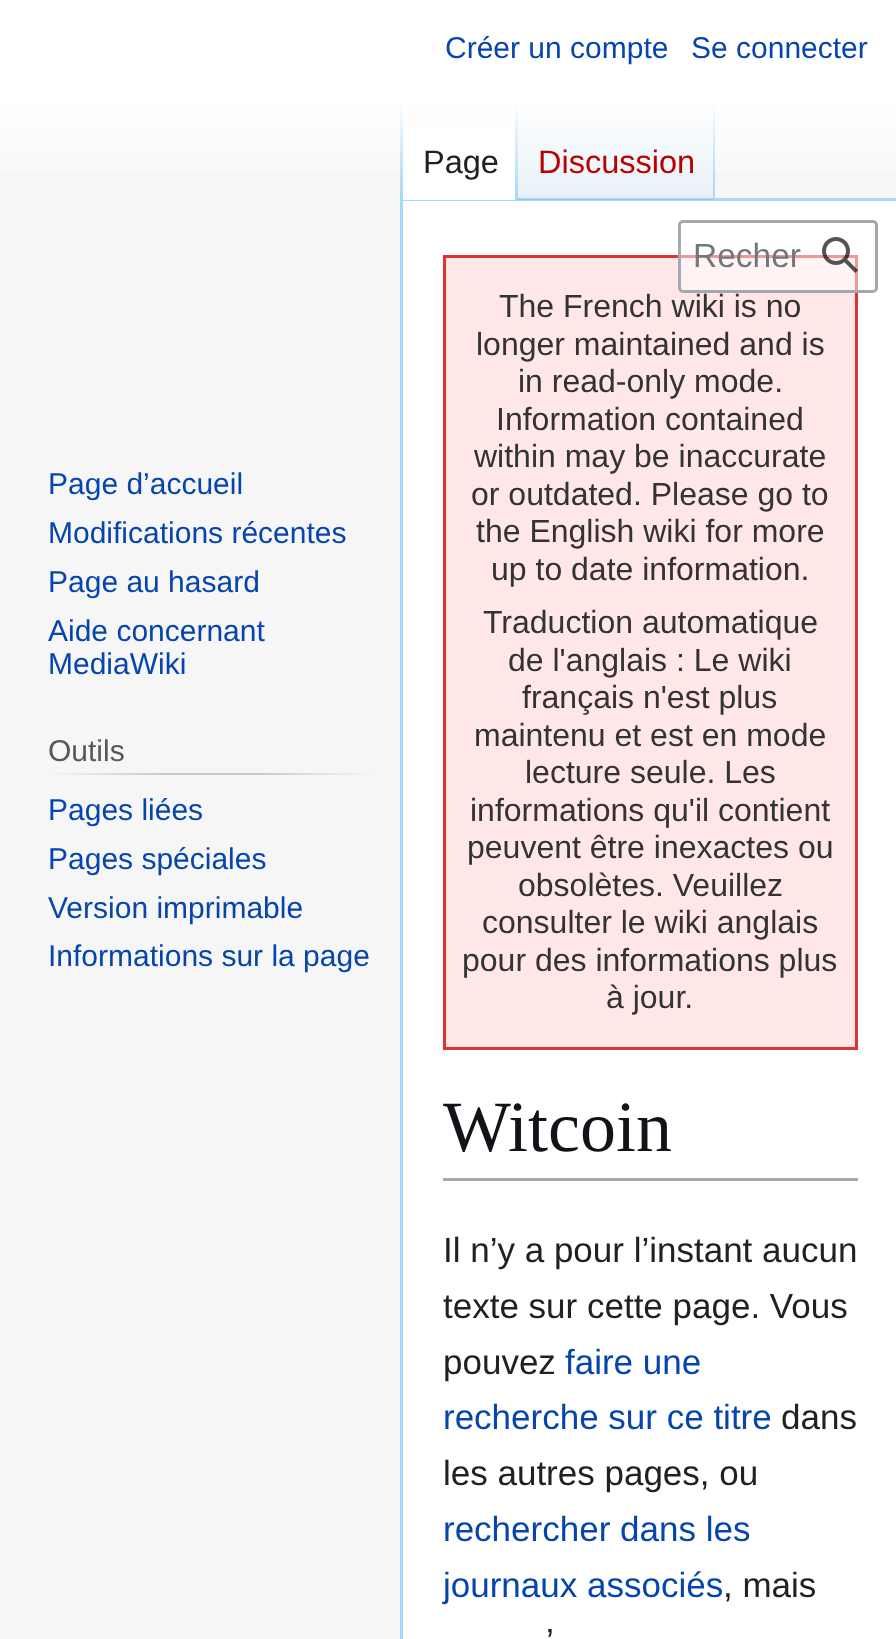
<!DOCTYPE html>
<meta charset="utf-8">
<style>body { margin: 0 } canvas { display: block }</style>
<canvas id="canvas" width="896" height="1639"></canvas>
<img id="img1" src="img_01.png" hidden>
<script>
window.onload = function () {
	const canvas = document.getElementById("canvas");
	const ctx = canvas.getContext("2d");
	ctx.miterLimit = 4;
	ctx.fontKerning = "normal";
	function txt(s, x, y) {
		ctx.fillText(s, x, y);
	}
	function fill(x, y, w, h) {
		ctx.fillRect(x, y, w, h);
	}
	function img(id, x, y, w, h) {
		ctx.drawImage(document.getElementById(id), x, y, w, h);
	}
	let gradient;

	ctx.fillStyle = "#F6F6F6";
	fill(0, 0, 896, 1639);
	gradient = ctx.createLinearGradient(449, 0, 449, 200);
	gradient.addColorStop(0.5, "#FFFFFF");
	gradient.addColorStop(1, "#F6F6F6");
	ctx.fillStyle = gradient;
	fill(0, 0, 896, 172);
	ctx.fillStyle = "#A7D7F9";
	fill(400, 198, 496, 3);
	fill(400, 198, 3, 1441);
	gradient = ctx.createLinearGradient(401, 100, 401, 200);
	gradient.addColorStop(0, "rgba(167, 215, 249, 0)");
	gradient.addColorStop(1, "#A7D7F9");
	ctx.fillStyle = gradient;
	fill(400, 100, 3, 100);
	ctx.fillStyle = "#FFFFFF";
	fill(403, 128, 112, 72);
	gradient = ctx.createLinearGradient(516, 100, 516, 200);
	gradient.addColorStop(0, "#FFFFFF");
	gradient.addColorStop(1, "#A7D7F9");
	ctx.fillStyle = gradient;
	fill(515, 100, 3, 100);
	gradient = ctx.createLinearGradient(616, 200, 616, 100);
	gradient.addColorStop(0, "#77C1F6");
	gradient.addColorStop(0.03, "#E8F2F8");
	gradient.addColorStop(1, "#FFFFFF");
	ctx.fillStyle = gradient;
	fill(518, 115, 197, 85);
	gradient = ctx.createLinearGradient(714, 100, 714, 200);
	gradient.addColorStop(0, "rgba(167, 215, 249, 0)");
	gradient.addColorStop(1, "#A7D7F9");
	ctx.fillStyle = gradient;
	fill(713, 100, 2, 100);
	ctx.fillStyle = "#FFFFFF";
	fill(403, 201, 493, 1438);
	ctx.fillStyle = "#FEE7E6";
	ctx.beginPath();
	ctx.rect(444.5, 256.5, 412, 792);
	ctx.fill();
	ctx.strokeStyle = "#DD3333";
	ctx.lineWidth = 3;
	ctx.stroke();
	ctx.fillStyle = "rgba(255, 255, 255, 0.5)";
	ctx.beginPath();
	ctx.roundRect(679.5, 221.5, 197, 70, 3.5);
	ctx.fill();
	ctx.strokeStyle = "#A2A9B1";
	ctx.stroke();
	img("img1", 822, 237, 36, 36);
	gradient = ctx.createLinearGradient(48, 774, 375, 774);
	gradient.addColorStop(0, "#F6F6F6");
	gradient.addColorStop(0.33, "#C8CCD1");
	gradient.addColorStop(0.66, "#C8CCD1");
	gradient.addColorStop(1, "#F6F6F6");
	ctx.fillStyle = gradient;
	fill(48, 773, 327, 2);
	ctx.fillStyle = "#A2A9B1";
	fill(443, 1178, 415, 3);
	ctx.font = "30px Liberation Sans";
	ctx.fillStyle = "#0645AD";
	txt("Créer un compte", 445, 58);
	txt("Se connecter", 691, 58);
	ctx.font = "32.5px Liberation Sans";
	ctx.fillStyle = "#202122";
	txt("Page", 423, 173);
	ctx.fillStyle = "#BA0000";
	txt("Discussion", 538, 173);
	ctx.font = "33.5px Liberation Sans";
	ctx.fillStyle = "#72777D";
	txt("Recher", 693, 267);
	ctx.font = "30px Liberation Sans";
	ctx.fillStyle = "#0645AD";
	txt("Page d’accueil", 48, 494);
	txt("Modifications récentes", 48, 543);
	txt("Page au hasard", 48, 592);
	txt("Aide concernant", 48, 641);
	txt("MediaWiki", 48, 674);
	ctx.fillStyle = "#54595D";
	txt("Outils", 48, 761);
	ctx.fillStyle = "#0645AD";
	txt("Pages liées", 48, 820);
	txt("Pages spéciales", 48, 869);
	txt("Version imprimable", 48, 918);
	txt("Informations sur la page", 48, 966);
	ctx.font = "32px Liberation Sans";
	ctx.fillStyle = "#333333";
	txt("The French wiki is no", 499, 317);
	txt("longer maintained and is", 476, 355);
	txt("in read-only mode.", 518, 392);
	txt("Information contained", 496, 430);
	txt("within may be inaccurate", 474, 467);
	txt("or outdated. Please go to", 471, 505);
	txt("the English wiki for more", 476, 542);
	txt("up to date information.", 491, 580);
	txt("Traduction automatique", 483, 633);
	txt("de l'anglais : Le wiki", 508, 671);
	txt("français n'est plus", 522, 708);
	txt("maintenu et est en mode", 474, 746);
	txt("lecture seule. Les", 525, 783);
	txt("informations qu'il contient", 470, 821);
	txt("peuvent être inexactes ou", 467, 858);
	txt("obsolètes. Veuillez", 518, 896);
	txt("consulter le wiki anglais", 482, 933);
	txt("pour des informations plus", 462, 971);
	txt("à jour.", 606, 1008);
	ctx.font = "72px Liberation Serif";
	ctx.fillStyle = "#101418";
	txt("Witcoin", 443, 1151);
	ctx.font = "35px Liberation Sans";
	ctx.fillStyle = "#202122";
	txt("Il n’y a pour l’instant aucun", 443, 1262);
	txt("texte sur cette page. Vous", 443, 1318);
	txt("pouvez", 443, 1374);
	ctx.fillStyle = "#0645AD";
	txt("faire une", 565, 1374);
	txt("recherche sur ce titre", 443, 1429);
	ctx.fillStyle = "#202122";
	txt("dans", 781, 1429);
	txt("les autres pages, ou", 443, 1485);
	ctx.fillStyle = "#0645AD";
	txt("rechercher dans les", 443, 1541);
	txt("journaux associés", 443, 1597);
	ctx.fillStyle = "#202122";
	txt(", mais", 723, 1597);
	txt("’", 546, 1653);
};
</script>
